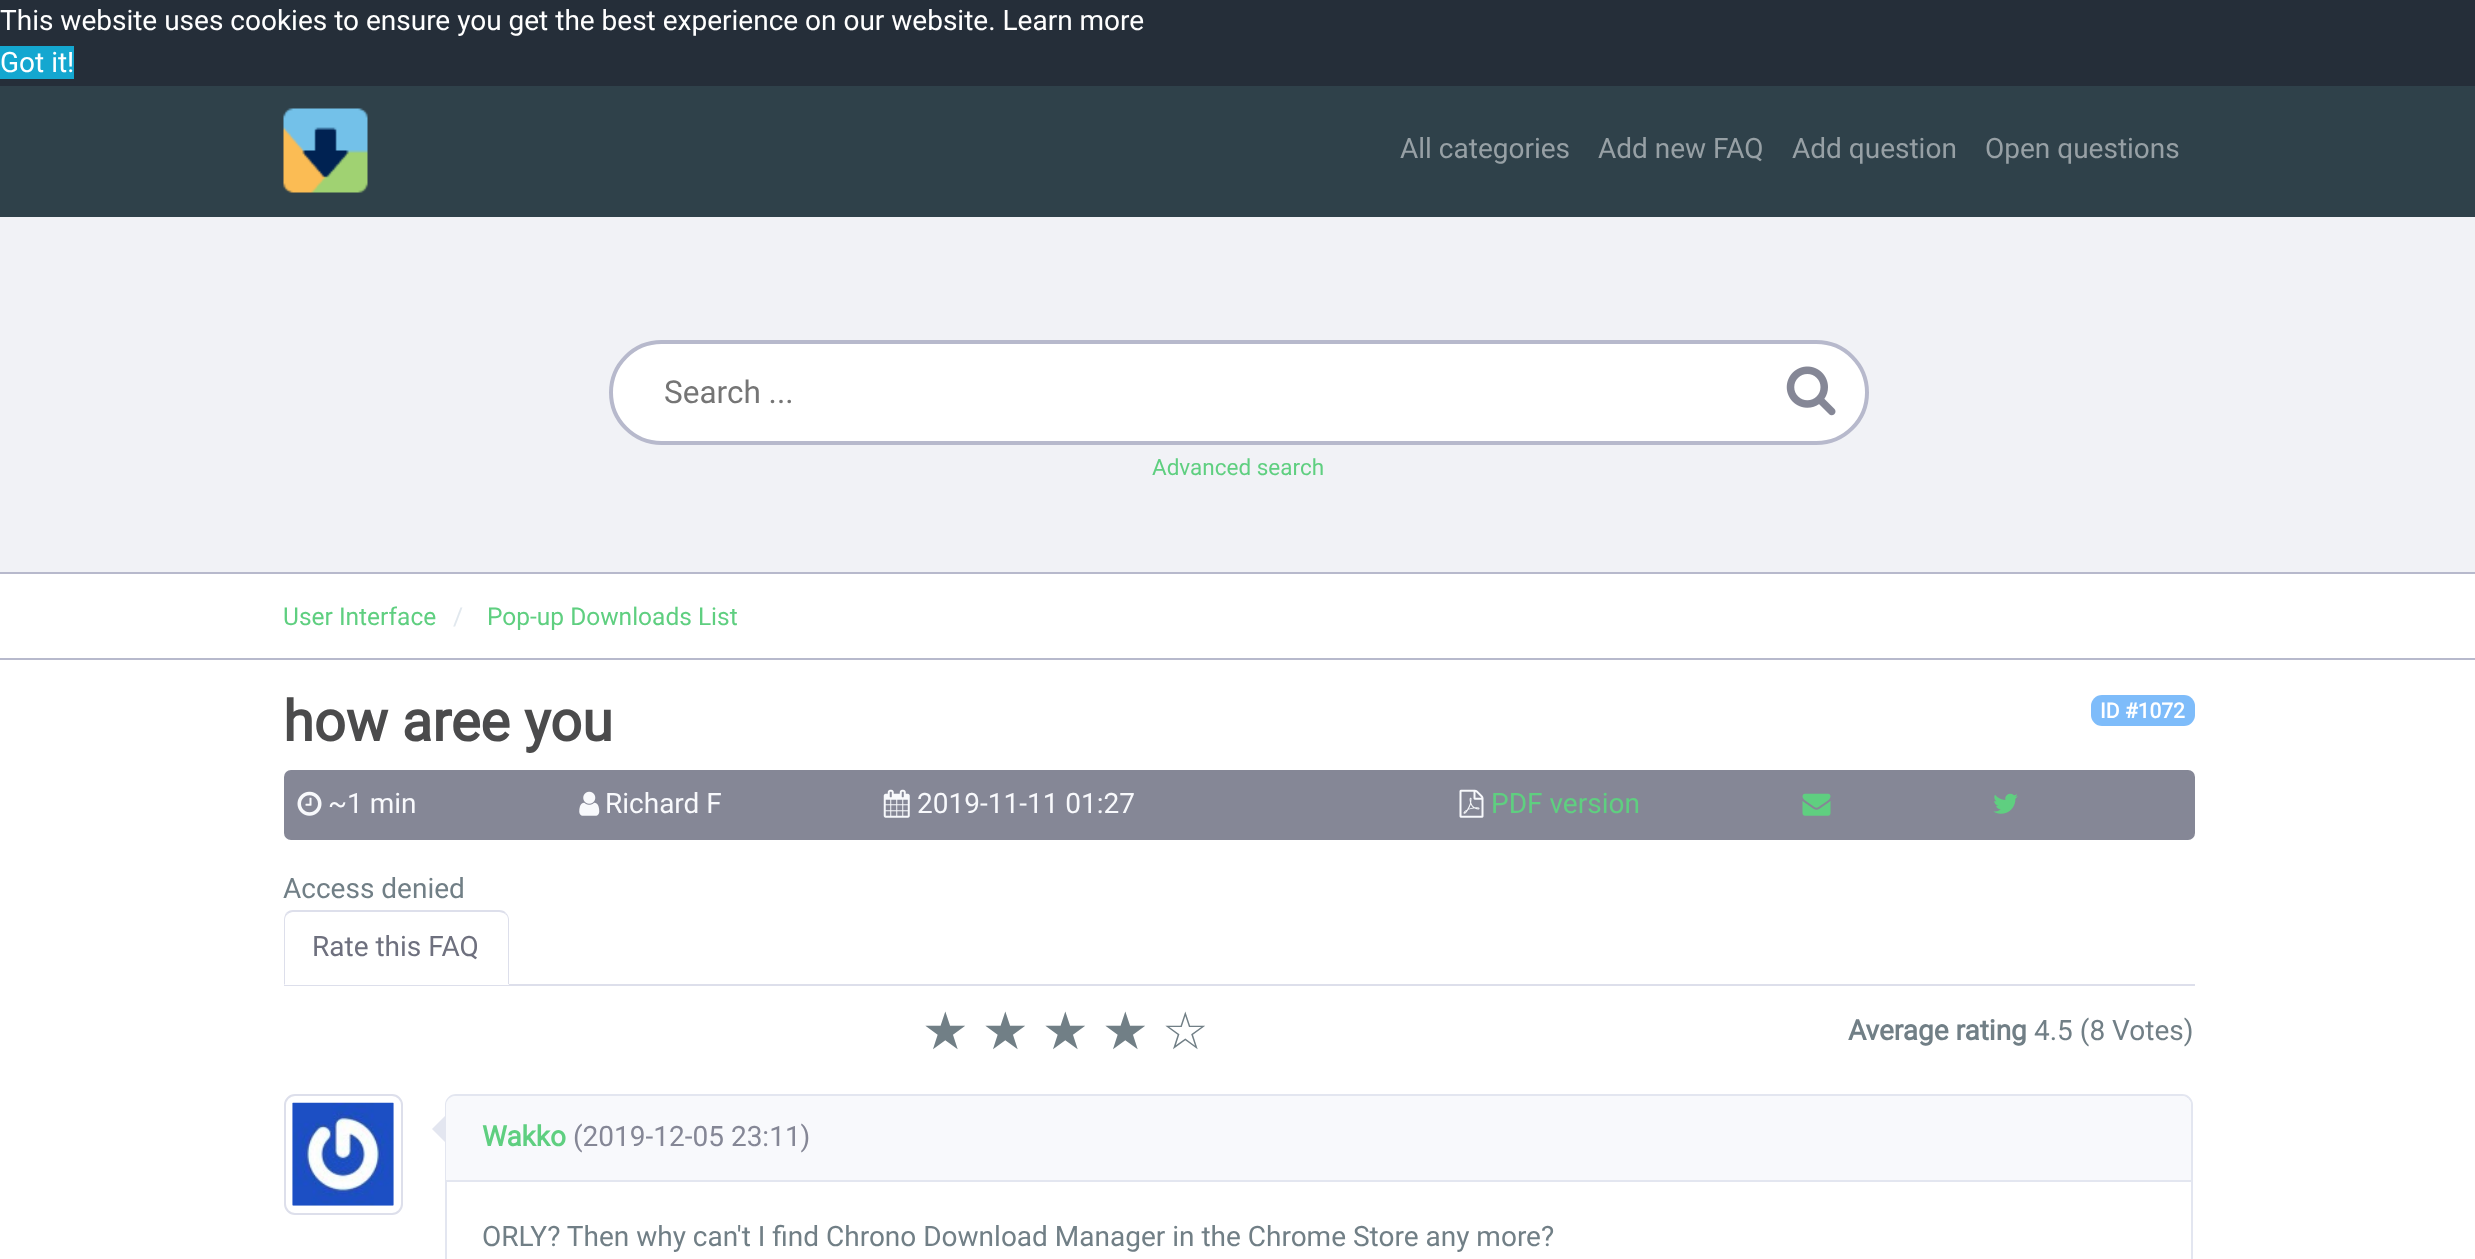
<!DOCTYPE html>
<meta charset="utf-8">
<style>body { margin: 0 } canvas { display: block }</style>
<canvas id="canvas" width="2475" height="1259"></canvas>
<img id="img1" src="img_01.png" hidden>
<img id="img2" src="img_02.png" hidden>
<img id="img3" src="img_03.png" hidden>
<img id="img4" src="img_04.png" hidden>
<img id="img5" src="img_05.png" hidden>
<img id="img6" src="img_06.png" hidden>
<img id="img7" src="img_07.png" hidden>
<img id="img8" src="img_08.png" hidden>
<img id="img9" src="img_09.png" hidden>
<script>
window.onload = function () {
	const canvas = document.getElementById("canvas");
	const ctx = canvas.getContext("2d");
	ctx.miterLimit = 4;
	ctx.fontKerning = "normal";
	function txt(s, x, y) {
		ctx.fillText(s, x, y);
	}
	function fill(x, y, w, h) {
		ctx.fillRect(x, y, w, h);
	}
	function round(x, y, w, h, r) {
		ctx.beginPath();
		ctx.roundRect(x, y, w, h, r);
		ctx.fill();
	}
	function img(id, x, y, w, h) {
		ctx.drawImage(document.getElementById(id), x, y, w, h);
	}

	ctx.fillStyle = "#FFFFFF";
	fill(0, 0, 2475, 1259);
	ctx.fillStyle = "#252E39";
	fill(0, 0, 2475, 86);
	ctx.fillStyle = "#14A7D0";
	fill(0, 46, 74, 33);
	ctx.fillStyle = "#2F414A";
	fill(0, 86, 2475, 131);
	img("img1", 283, 108, 85, 85);
	ctx.fillStyle = "#F1F2F6";
	fill(0, 217, 2475, 355);
	ctx.fillStyle = "#B7B9CC";
	fill(0, 572, 2475, 2);
	ctx.fillStyle = "#FFFFFF";
	ctx.beginPath();
	ctx.roundRect(611, 342, 1256, 101, 50.5);
	ctx.fill();
	ctx.strokeStyle = "#B7B9CC";
	ctx.lineWidth = 4;
	ctx.stroke();
	img("img2", 1786, 366, 50, 50);
	ctx.fillStyle = "#B7B9CC";
	fill(0, 658, 2475, 2);
	ctx.fillStyle = "#7EBCFA";
	round(2091, 695, 104, 31, 11);
	ctx.fillStyle = "#858796";
	round(284, 770, 1911, 70, 7);
	img("img3", 297, 791, 25, 25);
	img("img4", 579, 791, 21, 25);
	img("img5", 883, 789, 27, 29);
	img("img6", 1459, 789, 25, 29);
	img("img7", 1802, 793, 29, 23);
	img("img8", 1993, 793, 25, 21);
	ctx.fillStyle = "#DDDFEB";
	fill(284, 984, 1911, 2);
	ctx.fillStyle = "#FFFFFF";
	ctx.beginPath();
	ctx.roundRect(284, 910, 225, 75, [11, 11, 0, 0]);
	ctx.fill();
	ctx.fillStyle = "#DDDFEB";
	ctx.beginPath();
	ctx.moveTo(293, 910);
	ctx.bezierCurveTo(290, 910, 288, 911, 286, 913);
	ctx.lineTo(288, 914);
	ctx.bezierCurveTo(289, 913, 291, 912, 293, 912);
	ctx.lineTo(499, 912);
	ctx.bezierCurveTo(501, 912, 504, 913, 505, 914);
	ctx.lineTo(506, 913);
	ctx.bezierCurveTo(505, 911, 502, 910, 499, 910);
	ctx.closePath();
	ctx.fill();
	ctx.beginPath();
	ctx.moveTo(506, 913);
	ctx.bezierCurveTo(508, 915, 509, 917, 509, 920);
	ctx.lineTo(509, 985);
	ctx.lineTo(508, 984);
	ctx.lineTo(508, 920);
	ctx.bezierCurveTo(508, 917, 507, 915, 505, 914);
	ctx.closePath();
	ctx.fill();
	ctx.fillStyle = "#FFFFFF";
	ctx.beginPath();
	ctx.moveTo(509, 985);
	ctx.lineTo(508, 984);
	ctx.lineTo(285, 984);
	ctx.lineTo(284, 985);
	ctx.closePath();
	ctx.fill();
	ctx.fillStyle = "#DDDFEB";
	ctx.beginPath();
	ctx.moveTo(286, 913);
	ctx.bezierCurveTo(285, 915, 284, 917, 284, 920);
	ctx.lineTo(284, 985);
	ctx.lineTo(285, 984);
	ctx.lineTo(285, 920);
	ctx.bezierCurveTo(285, 917, 286, 915, 288, 914);
	ctx.closePath();
	ctx.fill();
	ctx.beginPath();
	ctx.roundRect(285, 1095, 117, 119, 10);
	ctx.strokeStyle = "#DDDFEB";
	ctx.lineWidth = 2;
	ctx.stroke();
	img("img9", 292, 1102, 102, 104);
	ctx.beginPath();
	ctx.roundRect(446, 1095, 1746, 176, 10);
	ctx.strokeStyle = "#E3E6F0";
	ctx.stroke();
	ctx.fillStyle = "#F8F9FC";
	ctx.beginPath();
	ctx.roundRect(446, 1096, 1745, 85, [9, 9, 0, 0]);
	ctx.fill();
	ctx.fillStyle = "#E3E6F0";
	fill(446, 1180, 1745, 2);
	ctx.beginPath();
	ctx.moveTo(446, 1115);
	ctx.lineTo(446, 1143);
	ctx.lineTo(432, 1129);
	ctx.closePath();
	ctx.fill();
	ctx.font = "28px Roboto";
	ctx.fillStyle = "#FFFFFF";
	txt("This website uses cookies to ensure you get the best experience on our website. Learn more", 0, 30);
	txt("Got it!", 0, 72);
	ctx.fillStyle = "#97A0A5";
	txt("All categories", 1400, 158);
	txt("Add new FAQ", 1598, 158);
	txt("Add question", 1792, 158);
	txt("Open questions", 1985, 158);
	ctx.font = "31.5px Roboto";
	ctx.fillStyle = "#757575";
	txt("Search ...", 664, 403);
	ctx.font = "22.5px Roboto";
	ctx.fillStyle = "#5FCF80";
	txt("Advanced search", 1152, 475);
	ctx.font = "24.5px Roboto";
	txt("User Interface", 283, 625);
	ctx.fillStyle = "#E1E8EE";
	txt("/", 453, 625);
	ctx.fillStyle = "#5FCF80";
	txt("Pop-up Downloads List", 487, 625);
	ctx.font = "bold 56px Roboto";
	ctx.fillStyle = "#4B4B4C";
	txt("how aree you", 283, 741);
	ctx.font = "bold 21px Roboto";
	ctx.fillStyle = "#FFFFFF";
	txt("ID #1072", 2100, 718);
	ctx.font = "28px Roboto";
	ctx.fillStyle = "#F8F9FC";
	txt("~1 min", 328, 813);
	txt("Richard F", 605, 813);
	txt("2019-11-11 01:27", 917, 813);
	ctx.fillStyle = "#5FCF80";
	txt("PDF version", 1491, 813);
	ctx.fillStyle = "#717F86";
	txt("Access denied", 283, 898);
	ctx.fillStyle = "#6E707E";
	txt("Rate this FAQ", 312, 956);
	ctx.font = "52px DejaVu Sans";
	ctx.fillStyle = "#717F86";
	txt("★", 922, 1049);
	txt("★", 982, 1049);
	txt("★", 1042, 1049);
	txt("★", 1102, 1049);
	txt("☆", 1162, 1049);
	ctx.font = "bold 28px Roboto";
	txt("Average rating", 1848, 1040);
	ctx.font = "28px Roboto";
	txt("4.5 (8 Votes)", 2034, 1040);
	ctx.font = "bold 28px Roboto";
	ctx.fillStyle = "#5FCF80";
	txt("Wakko", 482, 1146);
	ctx.font = "28px Roboto";
	ctx.fillStyle = "#858796";
	txt("(2019-12-05 23:11)", 573, 1146);
	ctx.fillStyle = "#717F86";
	txt("ORLY? Then why can't I find Chrono Download Manager in the Chrome Store any more?", 482, 1246);
};
</script>
